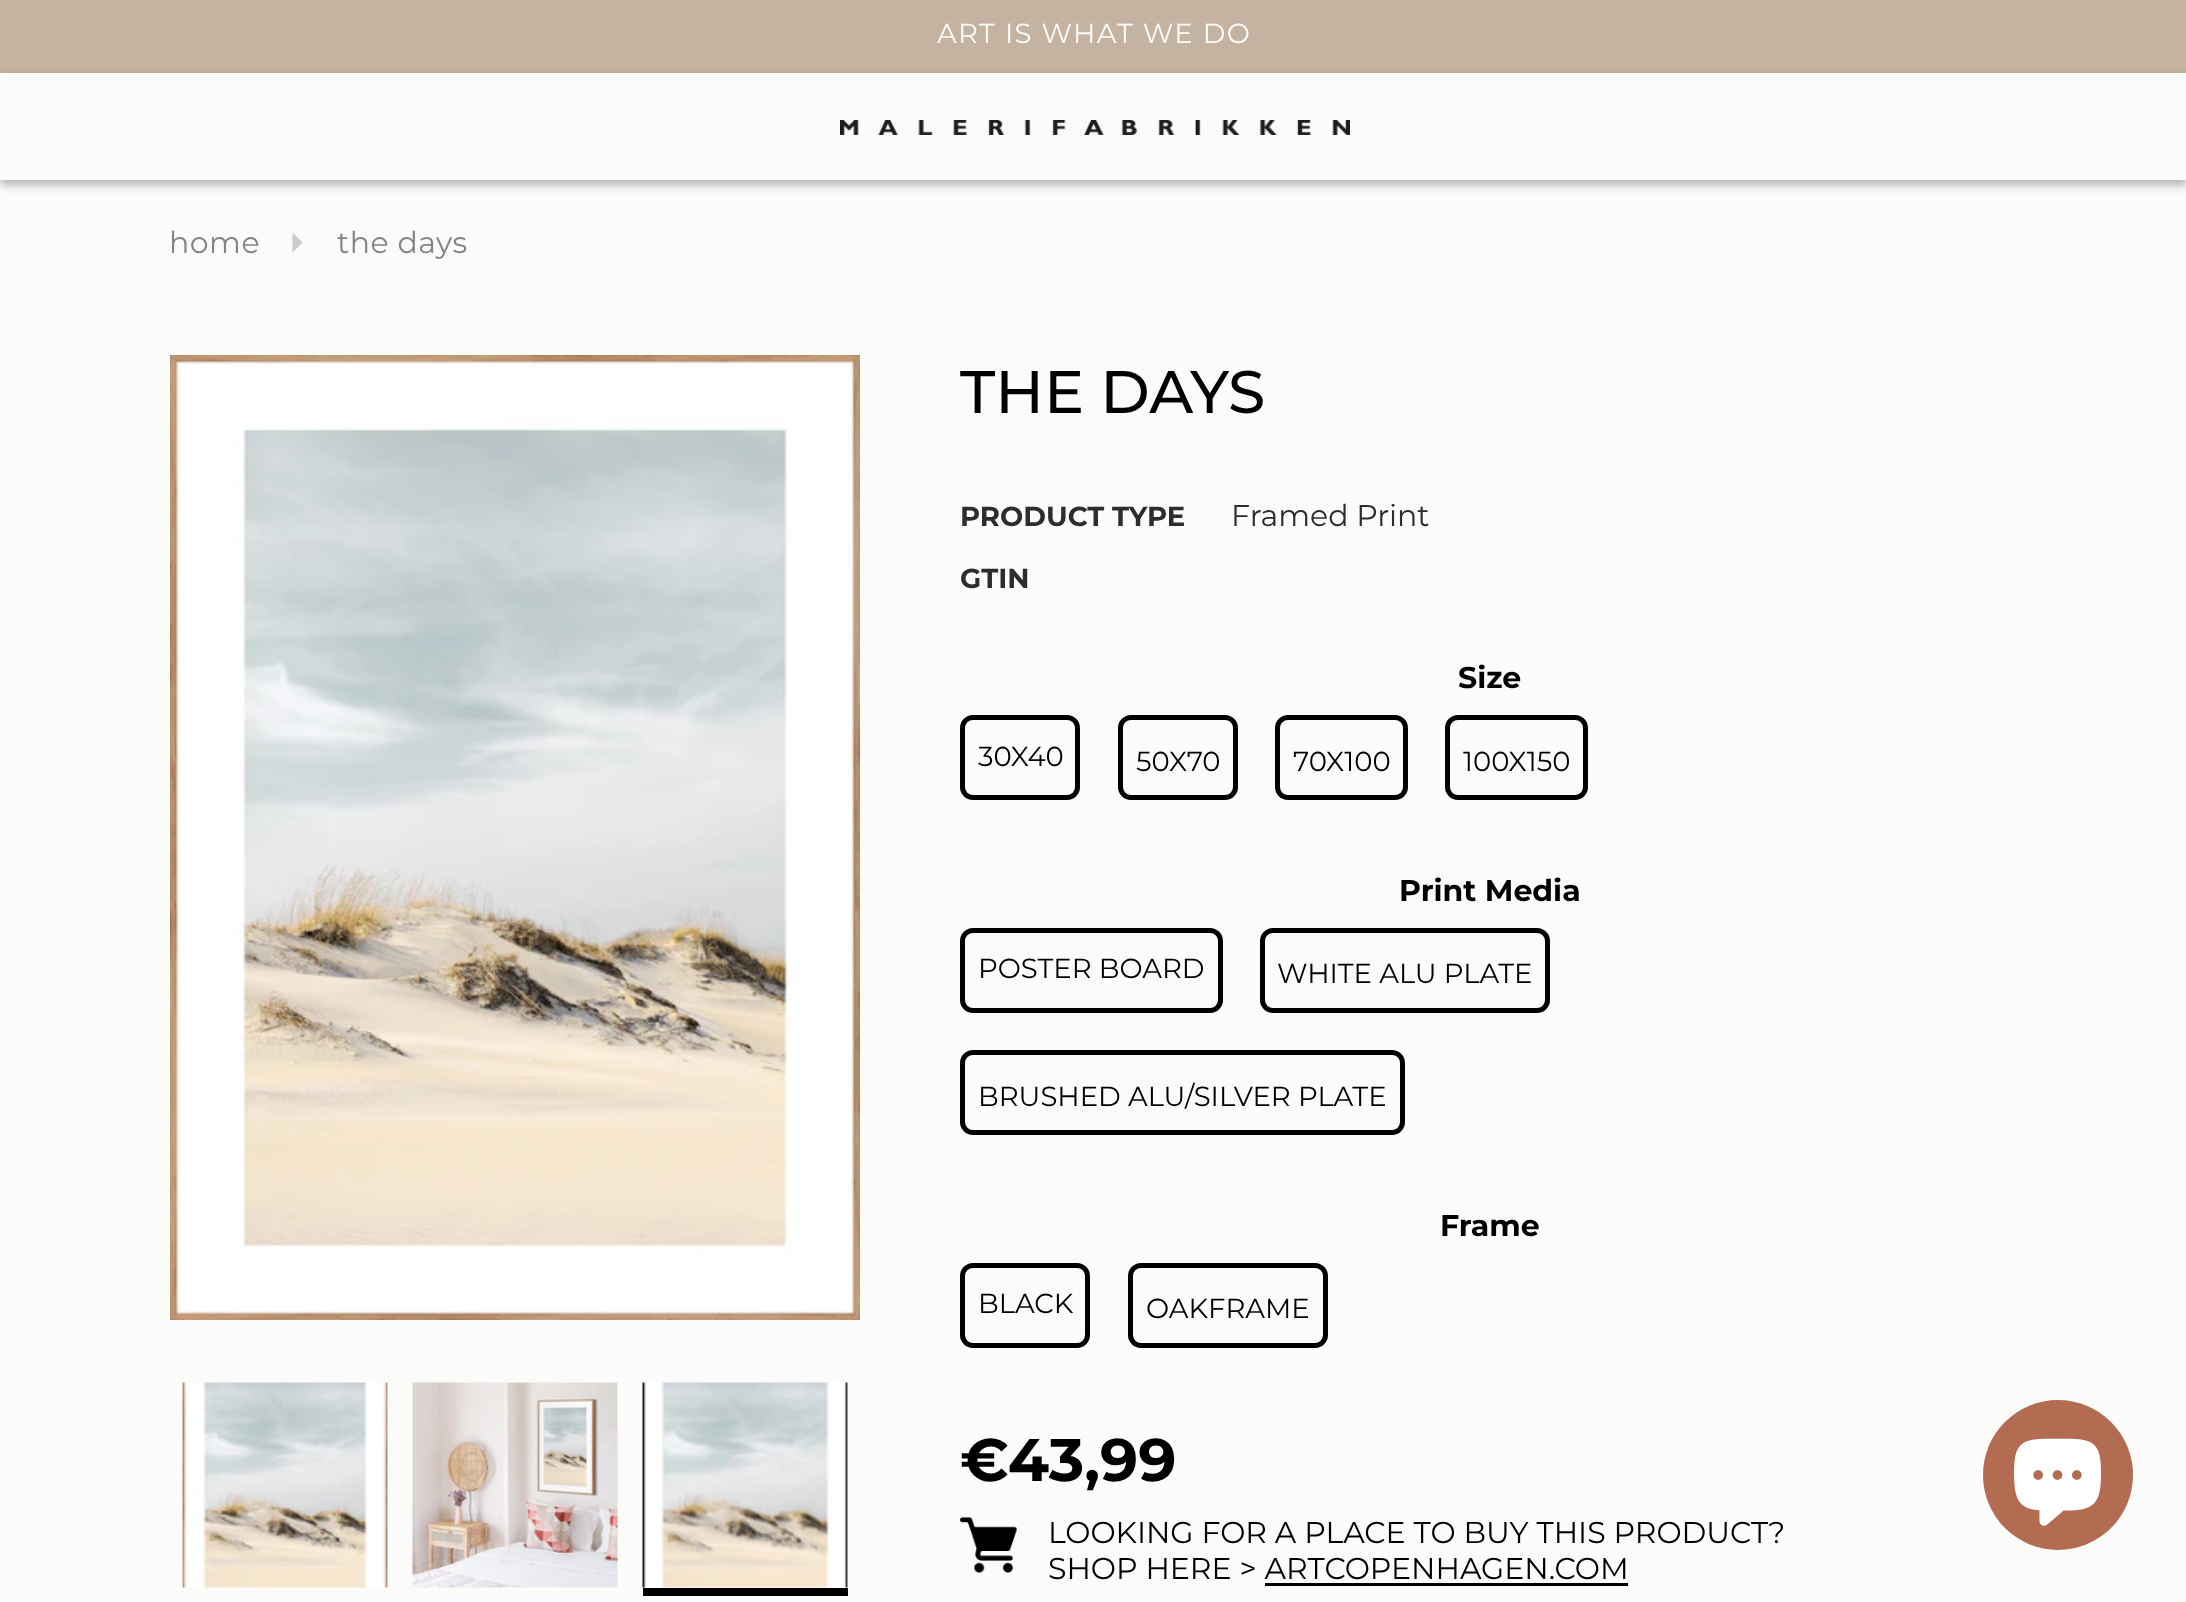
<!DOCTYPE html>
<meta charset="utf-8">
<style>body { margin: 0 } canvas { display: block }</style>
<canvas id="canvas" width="2186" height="1602"></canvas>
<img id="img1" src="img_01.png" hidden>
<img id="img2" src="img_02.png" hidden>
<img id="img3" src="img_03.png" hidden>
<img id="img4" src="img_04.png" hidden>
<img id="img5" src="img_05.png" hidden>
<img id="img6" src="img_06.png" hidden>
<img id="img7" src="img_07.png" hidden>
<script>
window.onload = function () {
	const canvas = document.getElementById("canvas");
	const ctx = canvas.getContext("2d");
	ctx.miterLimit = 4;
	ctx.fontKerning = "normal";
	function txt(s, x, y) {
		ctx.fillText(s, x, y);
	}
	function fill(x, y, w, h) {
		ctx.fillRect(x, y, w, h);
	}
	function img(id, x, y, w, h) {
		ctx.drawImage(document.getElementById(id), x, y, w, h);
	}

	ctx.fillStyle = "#FBFBF9";
	fill(0, 0, 2186, 1602);
	ctx.fillStyle = "#C4B3A1";
	fill(0, 0, 2186, 73);
	ctx.save();
	ctx.beginPath();
	ctx.moveTo(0, 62);
	ctx.lineTo(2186, 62);
	ctx.lineTo(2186, 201);
	ctx.lineTo(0, 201);
	ctx.closePath();
	ctx.moveTo(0, 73);
	ctx.lineTo(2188, 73);
	ctx.lineTo(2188, 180);
	ctx.lineTo(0, 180);
	ctx.closePath();
	ctx.clip("evenodd");
	ctx.fillStyle = "rgba(0, 0, 0, 0.29)";
	ctx.filter = "blur(5px)";
	ctx.beginPath();
	ctx.rect(0, 78, 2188, 107);
	ctx.fill();
	ctx.filter = "none";
	ctx.restore();
	img("img1", 840, 120, 510, 15);
	ctx.fillStyle = "#CBCBCB";
	ctx.beginPath();
	ctx.moveTo(292.5, 252.5);
	ctx.lineTo(292.5, 232.5);
	ctx.lineTo(302.5, 242.5);
	ctx.closePath();
	ctx.fill();
	img("img2", 170, 355, 690, 965);
	img("img3", 182, 1382, 206, 206);
	img("img4", 412, 1382, 206, 206);
	ctx.fillStyle = "#000000";
	fill(643, 1588, 205, 8);
	img("img5", 642, 1382, 206, 206);
	ctx.beginPath();
	ctx.roundRect(962.5, 717.5, 115, 80, 10.5);
	ctx.strokeStyle = "#000000";
	ctx.lineWidth = 5;
	ctx.stroke();
	ctx.beginPath();
	ctx.roundRect(1120.5, 717.5, 115, 80, 10.5);
	ctx.stroke();
	ctx.beginPath();
	ctx.roundRect(1277.5, 717.5, 128, 80, 10.5);
	ctx.stroke();
	ctx.beginPath();
	ctx.roundRect(1447.5, 717.5, 138, 80, 10.5);
	ctx.stroke();
	ctx.beginPath();
	ctx.roundRect(962.5, 930.5, 258, 80, 10.5);
	ctx.stroke();
	ctx.beginPath();
	ctx.roundRect(1262.5, 930.5, 285, 80, 10.5);
	ctx.stroke();
	ctx.beginPath();
	ctx.roundRect(962.5, 1052.5, 440, 80, 10.5);
	ctx.stroke();
	ctx.beginPath();
	ctx.roundRect(962.5, 1265.5, 125, 80, 10.5);
	ctx.stroke();
	ctx.beginPath();
	ctx.roundRect(1130.5, 1265.5, 195, 80, 10.5);
	ctx.stroke();
	img("img6", 960, 1516, 58, 57);
	fill(1265, 1583, 363, 3);
	ctx.fillStyle = "#B36C52";
	ctx.beginPath();
	ctx.arc(2058, 1475, 75, 0, Math.PI * 2);
	ctx.fill();
	img("img7", 2014, 1438, 87, 88);
	ctx.letterSpacing = "1.4px";
	ctx.font = "27.5px Montserrat";
	ctx.fillStyle = "#FBFBF9";
	txt("ART IS WHAT WE DO", 937, 43);
	ctx.letterSpacing = "0.5px";
	ctx.font = "30px Montserrat";
	ctx.fillStyle = "#848484";
	txt("home", 169, 253);
	txt("the days", 337, 253);
	ctx.letterSpacing = "0px";
	ctx.font = "500 60px Montserrat";
	ctx.fillStyle = "#000000";
	txt("THE DAYS", 960, 413);
	ctx.font = "bold 27.5px Montserrat";
	ctx.fillStyle = "#2D2D2D";
	txt("PRODUCT TYPE", 960, 526);
	ctx.font = "30px Montserrat";
	txt("Framed Print", 1231, 526);
	ctx.font = "bold 27.5px Montserrat";
	txt("GTIN", 960, 588);
	ctx.font = "bold 30px Montserrat";
	ctx.fillStyle = "#000000";
	txt("Size", 1458, 688);
	ctx.font = "27.5px Montserrat";
	txt("30X40", 978, 766);
	txt("50X70", 1136, 771);
	txt("70X100", 1293, 771);
	txt("100X150", 1463, 771);
	ctx.font = "bold 30px Montserrat";
	txt("Print Media", 1399, 901);
	ctx.font = "27.5px Montserrat";
	txt("POSTER BOARD", 978, 978);
	txt("WHITE ALU PLATE", 1277, 983);
	txt("BRUSHED ALU/SILVER PLATE", 978, 1106);
	ctx.font = "bold 30px Montserrat";
	txt("Frame", 1440, 1236);
	ctx.font = "27.5px Montserrat";
	txt("BLACK", 978, 1313);
	txt("OAKFRAME", 1146, 1318);
	ctx.font = "bold 60px Montserrat";
	txt("€43,99", 960, 1481);
	ctx.font = "30px Montserrat";
	txt("LOOKING FOR A PLACE TO BUY THIS PRODUCT?", 1048, 1543);
	txt("SHOP HERE > ARTCOPENHAGEN.COM", 1048, 1579);
};
</script>
